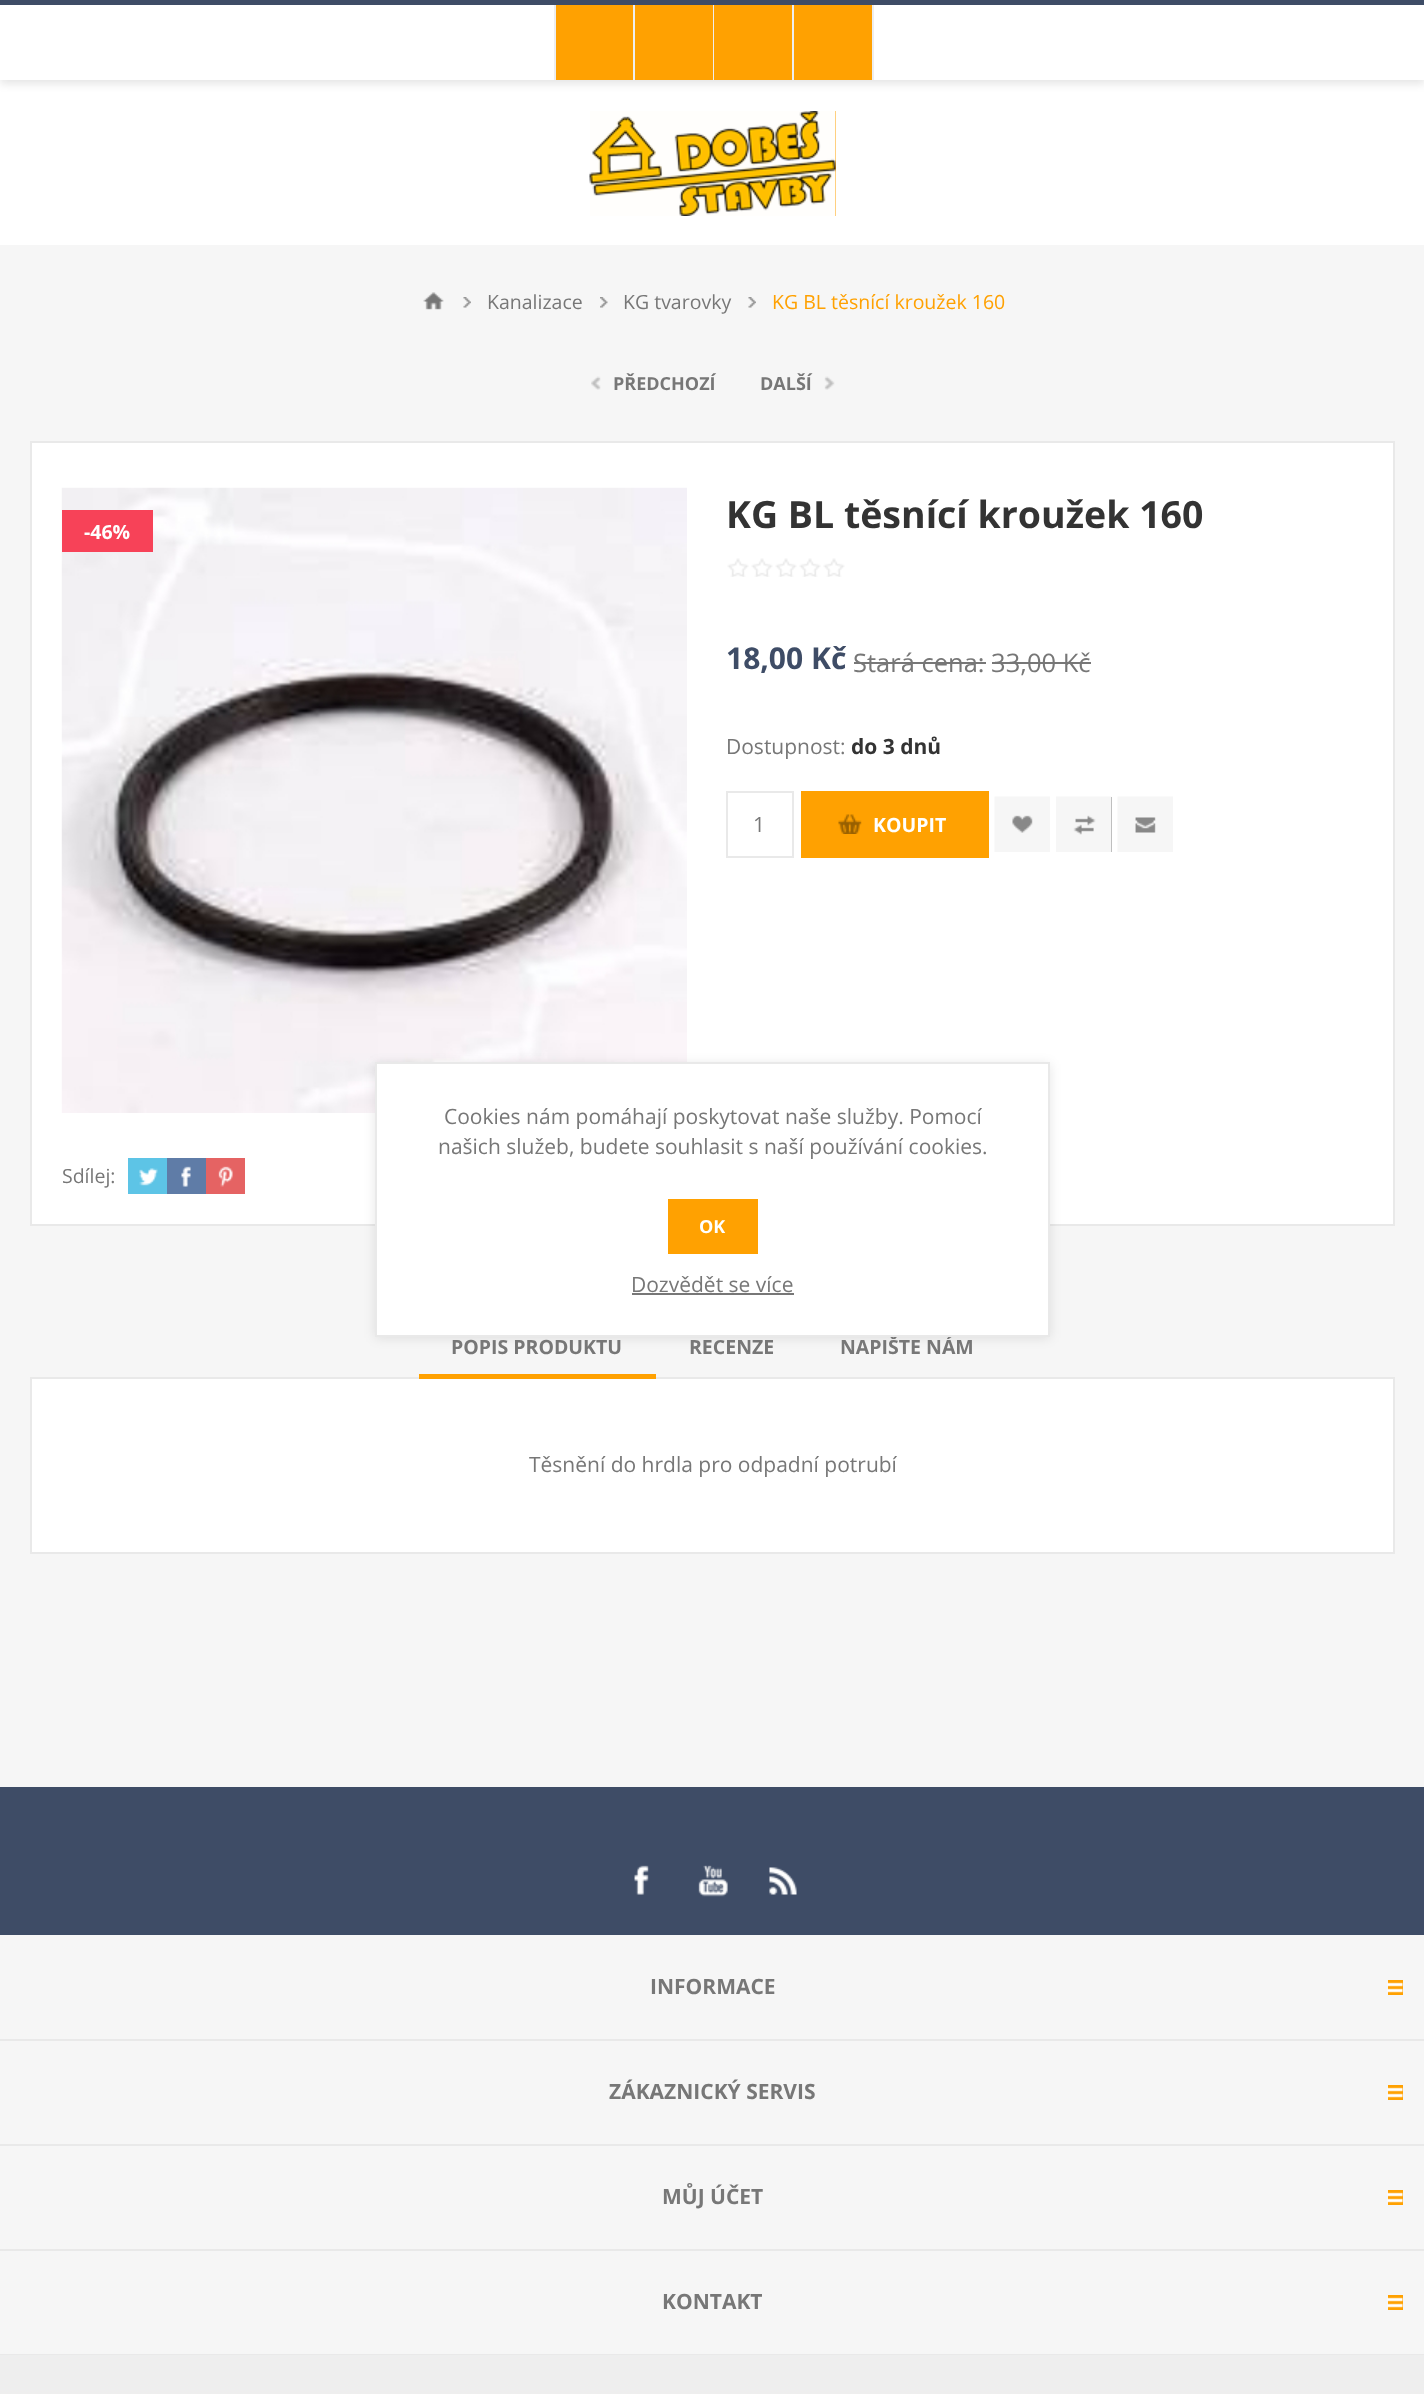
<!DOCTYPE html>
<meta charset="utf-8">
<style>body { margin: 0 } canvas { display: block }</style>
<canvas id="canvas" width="1424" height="2394"></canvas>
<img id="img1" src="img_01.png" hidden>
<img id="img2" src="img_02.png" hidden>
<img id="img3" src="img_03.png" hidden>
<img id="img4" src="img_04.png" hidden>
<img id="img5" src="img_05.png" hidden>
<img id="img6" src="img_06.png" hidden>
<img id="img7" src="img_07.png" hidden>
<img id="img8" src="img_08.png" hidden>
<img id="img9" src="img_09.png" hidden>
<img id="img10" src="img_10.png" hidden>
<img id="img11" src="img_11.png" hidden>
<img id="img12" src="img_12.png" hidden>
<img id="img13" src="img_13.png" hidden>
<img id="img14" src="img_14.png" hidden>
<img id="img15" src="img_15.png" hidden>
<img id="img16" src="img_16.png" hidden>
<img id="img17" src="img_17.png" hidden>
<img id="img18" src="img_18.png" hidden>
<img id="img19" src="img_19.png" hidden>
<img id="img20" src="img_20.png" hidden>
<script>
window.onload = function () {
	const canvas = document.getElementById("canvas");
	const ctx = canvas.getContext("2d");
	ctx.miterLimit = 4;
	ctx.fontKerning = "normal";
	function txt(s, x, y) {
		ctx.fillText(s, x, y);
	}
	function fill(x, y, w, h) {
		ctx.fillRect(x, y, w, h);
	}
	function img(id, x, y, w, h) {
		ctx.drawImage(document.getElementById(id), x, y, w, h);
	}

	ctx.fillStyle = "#F6F6F6";
	fill(0, 0, 1424, 2394);
	ctx.fillStyle = "#FFFFFF";
	fill(0, 80, 1424, 165);
	ctx.fillStyle = "rgba(0, 0, 0, 0.1)";
	ctx.filter = "blur(4px)";
	ctx.beginPath();
	ctx.rect(0, 5, 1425, 79);
	ctx.fill();
	ctx.filter = "none";
	ctx.fillStyle = "#FFFFFF";
	fill(0, 5, 1424, 75);
	ctx.fillStyle = "#3E4C66";
	fill(0, 0, 1424, 5);
	ctx.fillStyle = "#FFA101";
	fill(556, 5, 77, 75);
	ctx.fillStyle = "#EEEEEE";
	fill(633, 5, 2, 75);
	fill(554, 5, 2, 75);
	ctx.fillStyle = "#FFA101";
	fill(635, 5, 78, 75);
	ctx.fillStyle = "#EEEEEE";
	fill(713, 5, 1, 75);
	ctx.fillStyle = "#FFA101";
	fill(714, 5, 78, 75);
	ctx.fillStyle = "#EEEEEE";
	fill(792, 5, 2, 75);
	ctx.fillStyle = "#FFA101";
	fill(794, 5, 78, 75);
	ctx.fillStyle = "#EEEEEE";
	fill(872, 5, 2, 75);
	ctx.fillStyle = "#FFA204";
	fill(590, 111, 246, 105);
	img("img1", 589, 111, 247, 105);
	img("img2", 423, 292, 21, 18);
	img("img3", 463, 297, 8, 11);
	img("img4", 600, 297, 8, 11);
	img("img5", 748, 297, 8, 11);
	img("img6", 591, 376, 10, 14);
	img("img7", 824, 376, 11, 14);
	ctx.fillStyle = "#FFFFFF";
	ctx.beginPath();
	ctx.rect(31, 442, 1363, 783);
	ctx.fill();
	ctx.strokeStyle = "#E9E9E9";
	ctx.lineWidth = 2;
	ctx.stroke();
	img("img8", 61, 487, 626, 626);
	ctx.fillStyle = "#F74258";
	fill(62, 510, 91, 42);
	img("img9", 727, 558, 118, 19);
	ctx.fillStyle = "#777777";
	fill(854, 662, 132, 2);
	fill(992, 662, 99, 2);
	ctx.strokeRect(727, 792, 66, 65);
	ctx.fillStyle = "#FFA101";
	fill(801, 791, 188, 67);
	img("img10", 838, 814, 24, 20);
	ctx.fillStyle = "#888888";
	fill(1012, 815, 21, 18);
	img("img11", 994, 796, 56, 56);
	fill(1073, 797, 39, 55);
	img("img12", 1056, 796, 56, 56);
	fill(1135, 817, 21, 16);
	img("img13", 1117, 796, 56, 56);
	ctx.fillStyle = "#5DC4E6";
	fill(128, 1158, 39, 36);
	img("img14", 139, 1168, 19, 18);
	ctx.fillStyle = "#5F7CA7";
	fill(167, 1158, 39, 36);
	img("img15", 181, 1166, 10, 21);
	ctx.fillStyle = "#E56363";
	fill(206, 1158, 39, 36);
	img("img16", 218, 1166, 15, 21);
	ctx.fillStyle = "#FFFFFF";
	ctx.beginPath();
	ctx.rect(31, 1378, 1363, 175);
	ctx.fill();
	ctx.stroke();
	ctx.fillStyle = "#FFA101";
	fill(419, 1374, 237, 5);
	ctx.fillStyle = "#3E4C66";
	fill(0, 1787, 1424, 148);
	img("img17", 634, 1865, 15, 30);
	img("img18", 698, 1865, 30, 32);
	img("img19", 769, 1867, 28, 28);
	ctx.fillStyle = "#E9E9E9";
	fill(0, 2039, 1424, 2);
	ctx.fillStyle = "#FFA101";
	fill(1388, 1980, 15, 15);
	img("img20", 1387, 1982, 16, 11);
	ctx.fillStyle = "#E9E9E9";
	fill(0, 2144, 1424, 2);
	ctx.fillStyle = "#FFA101";
	fill(1388, 2085, 15, 15);
	img("img20", 1387, 2087, 16, 11);
	ctx.fillStyle = "#E9E9E9";
	fill(0, 2249, 1424, 2);
	ctx.fillStyle = "#FFA101";
	fill(1388, 2190, 15, 15);
	img("img20", 1387, 2192, 16, 11);
	ctx.fillStyle = "#E9E9E9";
	fill(0, 2354, 1424, 1);
	ctx.fillStyle = "#FFA101";
	fill(1388, 2295, 15, 15);
	img("img20", 1387, 2297, 16, 11);
	ctx.fillStyle = "#EEEEEE";
	fill(0, 2355, 1424, 39);
	ctx.fillStyle = "rgba(0, 0, 0, 0.1)";
	ctx.filter = "blur(6px)";
	ctx.beginPath();
	ctx.rect(375, 1064, 675, 274);
	ctx.fill();
	ctx.filter = "none";
	ctx.font = "19.5px Open Sans";
	ctx.fillStyle = "#777777";
	txt("Kanalizace", 487, 309);
	txt("KG tvarovky", 623, 309);
	ctx.fillStyle = "#FFA101";
	txt("KG BL těsnící kroužek 160", 772, 309);
	ctx.font = "bold 18px Open Sans";
	ctx.fillStyle = "#777777";
	txt("PŘEDCHOZÍ", 613, 390);
	txt("DALŠÍ", 760, 390);
	ctx.font = "bold 19.5px Open Sans";
	ctx.fillStyle = "#FFFFFF";
	txt("-46%", 84, 539);
	ctx.font = "bold 37.5px Open Sans";
	ctx.fillStyle = "#333333";
	txt("KG BL těsnící kroužek 160", 726, 528);
	ctx.font = "bold 30px Open Sans";
	ctx.fillStyle = "#3E4C66";
	txt("18,00 Kč", 726, 669);
	ctx.font = "25.5px Open Sans";
	ctx.fillStyle = "#777777";
	txt("Stará cena: 33,00 Kč", 853, 672);
	ctx.font = "21px Open Sans";
	txt("Dostupnost:", 726, 754);
	ctx.font = "bold 21px Open Sans";
	ctx.fillStyle = "#333333";
	txt("do 3 dnů", 851, 754);
	ctx.font = "21px Open Sans";
	ctx.fillStyle = "#777777";
	txt("1", 753, 832);
	ctx.font = "bold 19.5px Open Sans";
	ctx.fillStyle = "#FFFFFF";
	txt("KOUPIT", 873, 832);
	ctx.font = "19.5px Open Sans";
	ctx.fillStyle = "#777777";
	txt("Sdílej:", 62, 1183);
	ctx.font = "bold 19.5px Open Sans";
	txt("POPIS PRODUKTU", 451, 1354);
	txt("RECENZE", 689, 1354);
	txt("NAPIŠTE NÁM", 840, 1354);
	ctx.font = "21px Open Sans";
	txt("Těsnění do hrdla pro odpadní potrubí", 529, 1472);
	ctx.font = "bold 21px Open Sans";
	txt("INFORMACE", 650, 1994);
	txt("ZÁKAZNICKÝ SERVIS", 609, 2099);
	txt("MŮJ ÚČET", 662, 2204);
	txt("KONTAKT", 662, 2309);
	ctx.fillStyle = "#FFFFFF";
	ctx.beginPath();
	ctx.rect(376, 1063, 673, 273);
	ctx.fill();
	ctx.stroke();
	ctx.font = "21px Open Sans";
	ctx.fillStyle = "#777777";
	txt("Cookies nám pomáhají poskytovat naše služby. Pomocí", 444, 1124);
	txt("našich služeb, budete souhlasit s naší používání cookies.", 438, 1154);
	ctx.fillStyle = "#FFA101";
	fill(668, 1199, 90, 55);
	ctx.font = "bold 18px Open Sans";
	ctx.fillStyle = "#FFFFFF";
	txt("OK", 699, 1233);
	ctx.font = "21px Open Sans";
	ctx.fillStyle = "#777777";
	txt("Dozvědět se více", 631, 1292);
	fill(632, 1293, 162, 2);
};
</script>
